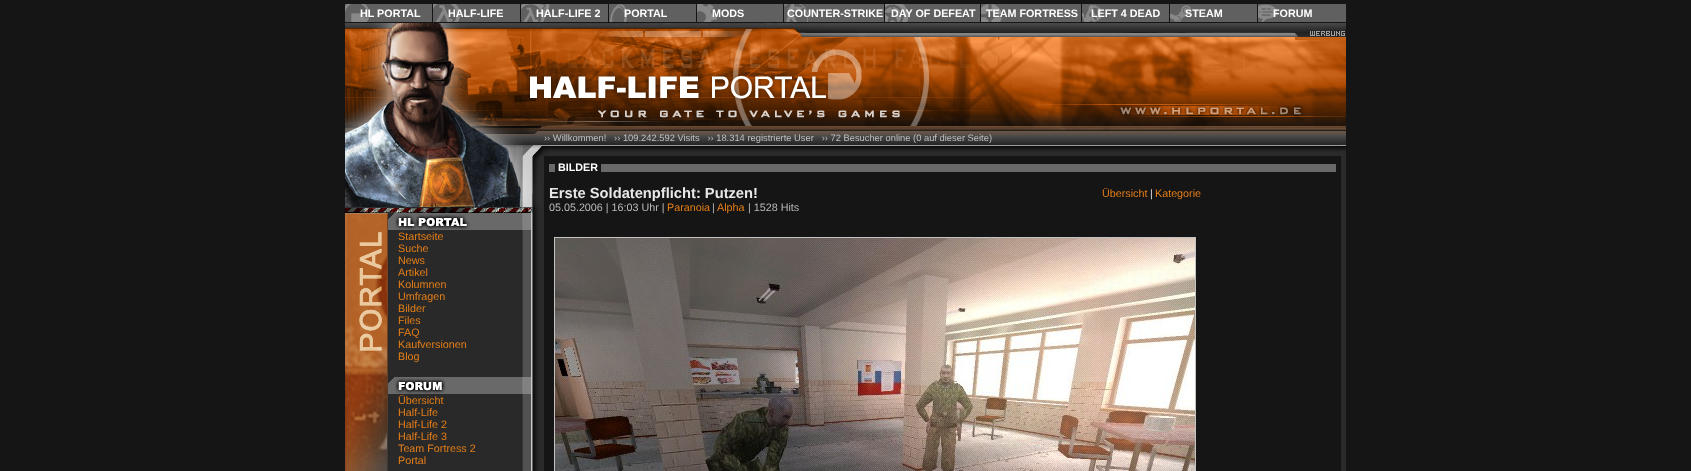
<!DOCTYPE html>
<meta charset="utf-8">
<style>body { margin: 0 } canvas { display: block }</style>
<canvas id="canvas" width="1691" height="471"></canvas>
<img id="img1" src="img_01.png" hidden>
<img id="img2" src="img_02.png" hidden>
<img id="img3" src="img_03.png" hidden>
<img id="img4" src="img_04.png" hidden>
<img id="img5" src="img_05.png" hidden>
<img id="img6" src="img_06.png" hidden>
<img id="img7" src="img_07.png" hidden>
<img id="img8" src="img_08.png" hidden>
<img id="img9" src="img_09.png" hidden>
<img id="img10" src="img_10.png" hidden>
<img id="img11" src="img_11.png" hidden>
<img id="img12" src="img_12.png" hidden>
<img id="img13" src="img_13.png" hidden>
<img id="img14" src="img_14.png" hidden>
<img id="img15" src="img_15.png" hidden>
<img id="img16" src="img_16.png" hidden>
<img id="img17" src="img_17.png" hidden>
<img id="img18" src="img_18.png" hidden>
<img id="img19" src="img_19.png" hidden>
<img id="img20" src="img_20.png" hidden>
<img id="img21" src="img_21.png" hidden>
<img id="img22" src="img_22.png" hidden>
<img id="img23" src="img_23.png" hidden>
<img id="img24" src="img_24.png" hidden>
<img id="img25" src="img_25.png" hidden>
<img id="img26" src="img_26.png" hidden>
<img id="img27" src="img_27.png" hidden>
<script>
window.onload = function () {
	const canvas = document.getElementById("canvas");
	const ctx = canvas.getContext("2d");
	ctx.miterLimit = 4;
	ctx.fontKerning = "normal";
	function txt(s, x, y) {
		ctx.fillText(s, x, y);
	}
	function fill(x, y, w, h) {
		ctx.fillRect(x, y, w, h);
	}
	function img(id, x, y, w, h) {
		ctx.drawImage(document.getElementById(id), x, y, w, h);
	}

	ctx.fillStyle = "#151515";
	fill(0, 0, 1691, 471);
	ctx.fillStyle = "#606060";
	fill(370, 4, 62, 18);
	img("img1", 345, 4, 25, 18);
	fill(460, 4, 60, 18);
	img("img2", 433, 4, 27, 18);
	fill(550, 4, 58, 18);
	img("img3", 521, 4, 29, 18);
	fill(609, 4, 87, 18);
	img("img4", 610, 4, 17, 18);
	fill(718, 4, 65, 18);
	img("img5", 697, 4, 21, 18);
	fill(808, 4, 76, 18);
	img("img6", 784, 4, 24, 18);
	fill(909, 4, 71, 18);
	img("img7", 885, 4, 24, 18);
	fill(1002, 4, 79, 18);
	img("img8", 981, 4, 21, 18);
	fill(1102, 4, 67, 18);
	img("img9", 1082, 4, 20, 18);
	fill(1170, 4, 87, 18);
	img("img10", 1170, 5, 21, 17);
	fill(1277, 4, 69, 18);
	img("img11", 1258, 4, 19, 18);
	img("img12", 345, 23, 533, 14);
	img("img13", 878, 23, 468, 14);
	img("img14", 345, 37, 533, 60);
	img("img15", 878, 37, 468, 60);
	img("img16", 345, 97, 533, 33);
	img("img17", 878, 97, 468, 33);
	img("img18", 544, 130, 797, 15);
	img("img19", 544, 145, 797, 11);
	ctx.fillStyle = "#696969";
	fill(549, 164, 6, 8);
	fill(601, 164, 735, 8);
	ctx.strokeStyle = "#C3C3C3";
	ctx.strokeRect(554.5, 237.5, 641, 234);
	img("img20", 555, 238, 640, 233);
	ctx.fillStyle = "#2B2B2B";
	fill(1341, 142, 5, 329);
	img("img21", 1341, 130, 5, 12);
	img("img22", 1341, 145, 5, 6);
	img("img23", 388, 213, 156, 258);
	img("img24", 345, 130, 199, 83);
	img("img25", 345, 213, 43, 258);
	img("img26", 388, 213, 143, 17);
	img("img27", 388, 377, 143, 17);
	ctx.font = "bold 10.75px Liberation Sans";
	ctx.fillStyle = "#FFFFFF";
	txt("HL PORTAL", 360, 17);
	txt("HALF-LIFE", 448, 17);
	txt("HALF-LIFE 2", 536, 17);
	txt("PORTAL", 624, 17);
	txt("MODS", 712, 17);
	txt("COUNTER-STRIKE", 787, 17);
	txt("DAY OF DEFEAT", 891, 17);
	txt("TEAM FORTRESS", 986, 17);
	txt("LEFT 4 DEAD", 1091, 17);
	txt("STEAM", 1185, 17);
	txt("FORUM", 1273, 17);
	ctx.font = "9.35px Liberation Sans";
	ctx.fillStyle = "#C0C0C0";
	txt("›› Willkommen!   ›› 109.242.592 Visits   ›› 18.314 registrierte User   ›› 72 Besucher online (0 auf dieser Seite)", 544, 141);
	ctx.font = "bold 10.75px Liberation Sans";
	ctx.fillStyle = "#FFFFFF";
	txt("BILDER", 558, 171);
	ctx.font = "bold 14.7px Liberation Sans";
	ctx.fillStyle = "#E8E8E8";
	txt("Erste Soldatenpflicht: Putzen!", 549, 198);
	ctx.font = "10.75px Liberation Sans";
	ctx.fillStyle = "#E57E17";
	txt("Übersicht", 1102, 197);
	ctx.fillStyle = "#E0E0E0";
	txt("|", 1150, 197);
	ctx.fillStyle = "#E57E17";
	txt("Kategorie", 1155, 197);
	ctx.fillStyle = "#B9B9B9";
	txt("05.05.2006 | 16:03 Uhr |", 549, 211);
	ctx.fillStyle = "#E57E17";
	txt("Paranoia", 667, 211);
	ctx.fillStyle = "#B9B9B9";
	txt("|", 712, 211);
	ctx.fillStyle = "#E57E17";
	txt("Alpha", 717, 211);
	ctx.fillStyle = "#B9B9B9";
	txt("| 1528 Hits", 748, 211);
	ctx.fillStyle = "#E57E17";
	txt("Startseite", 398, 240);
	txt("Suche", 398, 252);
	txt("News", 398, 264);
	txt("Artikel", 398, 276);
	txt("Kolumnen", 398, 288);
	txt("Umfragen", 398, 300);
	txt("Bilder", 398, 312);
	txt("Files", 398, 324);
	txt("FAQ", 398, 336);
	txt("Kaufversionen", 398, 348);
	txt("Blog", 398, 360);
	txt("Übersicht", 398, 404);
	txt("Half-Life", 398, 416);
	txt("Half-Life 2", 398, 428);
	txt("Half-Life 3", 398, 440);
	txt("Team Fortress 2", 398, 452);
	txt("Portal", 398, 464);
};
</script>
